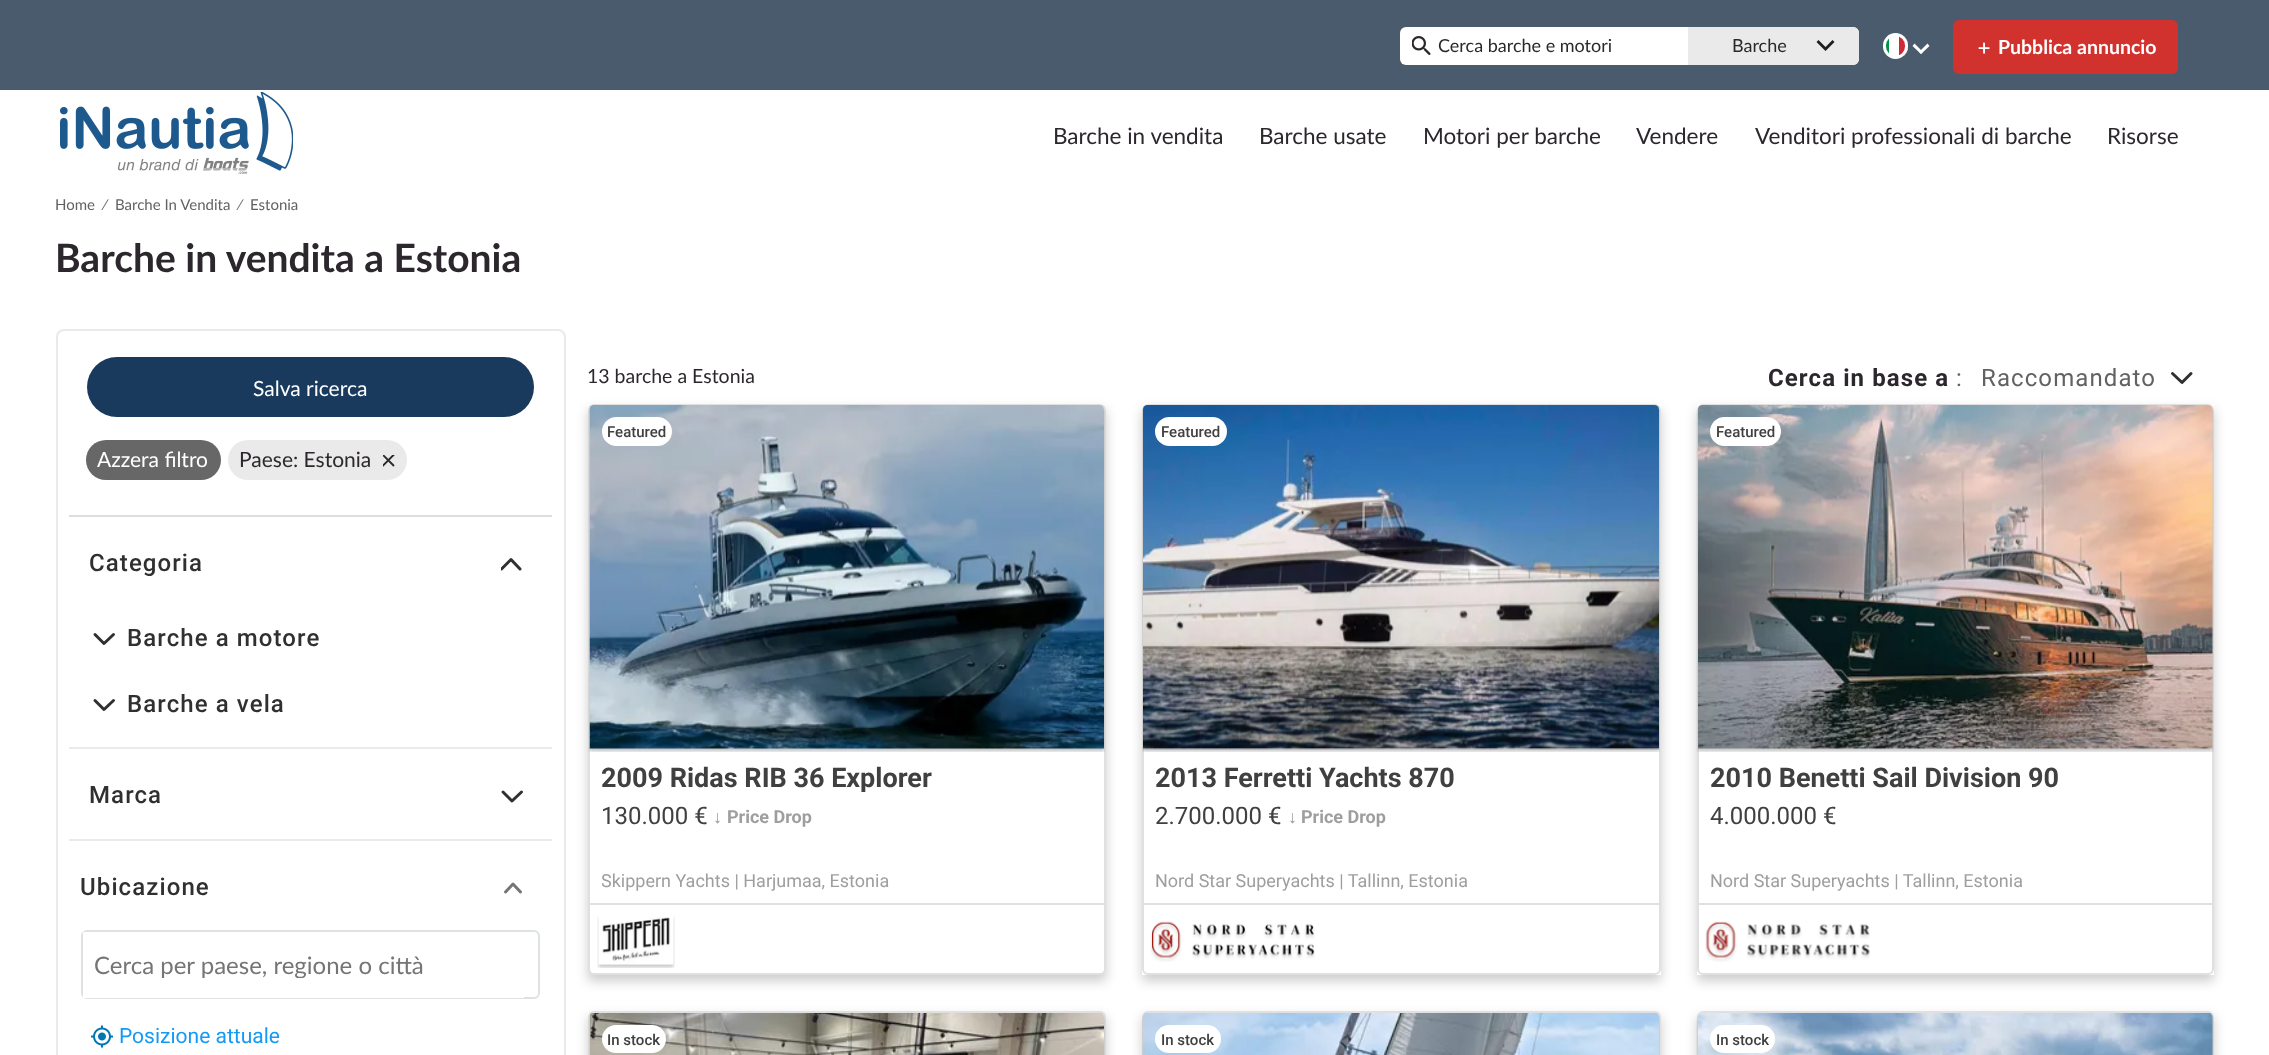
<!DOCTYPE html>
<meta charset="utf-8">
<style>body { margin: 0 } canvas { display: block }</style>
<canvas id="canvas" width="2269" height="1055"></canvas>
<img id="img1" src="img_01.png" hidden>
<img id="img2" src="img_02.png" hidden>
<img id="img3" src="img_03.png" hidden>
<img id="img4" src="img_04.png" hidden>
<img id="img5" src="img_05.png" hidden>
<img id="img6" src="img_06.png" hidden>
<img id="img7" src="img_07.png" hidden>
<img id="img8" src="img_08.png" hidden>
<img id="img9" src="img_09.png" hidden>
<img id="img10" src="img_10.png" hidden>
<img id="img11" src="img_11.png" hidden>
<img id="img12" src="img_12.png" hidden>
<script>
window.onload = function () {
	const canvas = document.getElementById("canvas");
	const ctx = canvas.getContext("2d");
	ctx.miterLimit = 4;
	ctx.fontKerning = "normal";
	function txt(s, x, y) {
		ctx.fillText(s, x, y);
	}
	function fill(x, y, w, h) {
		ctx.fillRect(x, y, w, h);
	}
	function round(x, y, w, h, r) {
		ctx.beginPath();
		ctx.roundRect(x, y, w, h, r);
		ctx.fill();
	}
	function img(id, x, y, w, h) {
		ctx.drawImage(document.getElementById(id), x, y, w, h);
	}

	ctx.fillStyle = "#FFFFFF";
	fill(0, 0, 2269, 1055);
	ctx.fillStyle = "#495B6D";
	fill(0, 0, 2269, 90);
	ctx.fillStyle = "#FFFFFF";
	round(1400, 27, 459, 38, 6);
	img("img1", 1412, 36, 19, 19);
	ctx.fillStyle = "#EAEAEA";
	ctx.beginPath();
	ctx.roundRect(1688, 27, 171, 38, [0, 6, 6, 0]);
	ctx.fill();
	ctx.fillStyle = "#1F1F1F";
	ctx.beginPath();
	ctx.moveTo(1818.5, 40);
	ctx.lineTo(1825.5, 47);
	ctx.lineTo(1832.5, 40);
	ctx.lineTo(1834.5, 42);
	ctx.lineTo(1825.5, 51);
	ctx.lineTo(1816.5, 42);
	ctx.closePath();
	ctx.fill();
	ctx.save();
	ctx.beginPath();
	ctx.roundRect(1883, 33, 25, 26, 12.5);
	ctx.clip();
	ctx.fillStyle = "#009246";
	fill(1883, 36, 25, 20);
	ctx.fillStyle = "#FFFFFF";
	fill(1889, 36, 19, 20);
	ctx.fillStyle = "#CE2B37";
	fill(1899, 36, 9, 20);
	ctx.restore();
	ctx.beginPath();
	ctx.roundRect(1884.5, 34.5, 22, 23, 11);
	ctx.strokeStyle = "#FFFFFF";
	ctx.lineWidth = 3;
	ctx.stroke();
	ctx.fillStyle = "#FFFFFF";
	ctx.beginPath();
	ctx.moveTo(1927.5, 43.5);
	ctx.lineTo(1929.5, 46);
	ctx.lineTo(1921, 54);
	ctx.lineTo(1919, 52);
	ctx.closePath();
	ctx.fill();
	ctx.beginPath();
	ctx.moveTo(1914.5, 43.5);
	ctx.lineTo(1923, 52);
	ctx.lineTo(1921, 54);
	ctx.lineTo(1912.5, 46);
	ctx.closePath();
	ctx.fill();
	ctx.fillStyle = "#D2322D";
	round(1953, 20, 225, 54, 6);
	img("img2", 60, 92, 233, 82);
	ctx.beginPath();
	ctx.roundRect(57, 330, 508, 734, 7);
	ctx.strokeStyle = "#EAEAEA";
	ctx.lineWidth = 2;
	ctx.stroke();
	ctx.fillStyle = "#193A5C";
	round(87, 357, 447, 60, 30);
	ctx.fillStyle = "#DDDDDD";
	fill(69, 515, 483, 2);
	ctx.fillStyle = "#676767";
	round(86, 440, 135, 40, 20);
	ctx.fillStyle = "#EAEAEA";
	round(228, 440, 179, 40, 20);
	ctx.save();
	ctx.beginPath();
	ctx.rect(383, 455, 12, 12);
	ctx.clip();
	ctx.beginPath();
	ctx.moveTo(394, 454.5);
	ctx.lineTo(382.5, 466);
	ctx.moveTo(394, 466);
	ctx.lineTo(382.5, 454.5);
	ctx.strokeStyle = "#2C272D";
	ctx.lineWidth = 1.9;
	ctx.stroke();
	ctx.restore();
	fill(69, 747, 483, 2);
	ctx.save();
	ctx.beginPath();
	ctx.rect(501, 557, 23, 15);
	ctx.clip();
	ctx.beginPath();
	ctx.moveTo(520, 569);
	ctx.lineTo(511, 559.5);
	ctx.lineTo(501.5, 569);
	ctx.strokeStyle = "#303030";
	ctx.lineWidth = 3;
	ctx.lineCap = "round";
	ctx.lineJoin = "round";
	ctx.stroke();
	ctx.restore();
	ctx.beginPath();
	ctx.moveTo(95, 634.5);
	ctx.lineTo(104, 643.5);
	ctx.lineTo(113.5, 634.5);
	ctx.strokeStyle = "#303030";
	ctx.lineWidth = 3;
	ctx.lineCap = "round";
	ctx.lineJoin = "round";
	ctx.stroke();
	ctx.beginPath();
	ctx.moveTo(95, 700.5);
	ctx.lineTo(104, 709.5);
	ctx.lineTo(113.5, 700.5);
	ctx.stroke();
	fill(69, 839, 483, 2);
	ctx.beginPath();
	ctx.moveTo(503, 792);
	ctx.lineTo(512, 801);
	ctx.lineTo(521.5, 792);
	ctx.stroke();
	ctx.beginPath();
	ctx.moveTo(520.5, 892);
	ctx.lineTo(513, 884);
	ctx.lineTo(505.5, 892);
	ctx.strokeStyle = "#757575";
	ctx.stroke();
	ctx.beginPath();
	ctx.roundRect(82, 931, 457, 67, 5);
	ctx.strokeStyle = "#DEE2E3";
	ctx.lineWidth = 2;
	ctx.lineJoin = "miter";
	ctx.stroke();
	ctx.fillStyle = "#FFFFFF";
	fill(83, 932, 441, 66);
	img("img3", 91, 1025, 22, 23);
	ctx.beginPath();
	ctx.moveTo(2172.5, 373.5);
	ctx.lineTo(2182, 382.5);
	ctx.lineTo(2191, 373.5);
	ctx.strokeStyle = "#303030";
	ctx.lineWidth = 3;
	ctx.lineJoin = "round";
	ctx.stroke();
	ctx.fillStyle = "rgba(0, 0, 0, 0.2)";
	ctx.filter = "blur(6px)";
	ctx.beginPath();
	ctx.rect(588, 410, 518, 571);
	ctx.fill();
	ctx.filter = "none";
	ctx.fillStyle = "#FFFFFF";
	ctx.beginPath();
	ctx.roundRect(589, 405, 516, 569, 5);
	ctx.fill();
	ctx.strokeStyle = "#E0E0E0";
	ctx.lineWidth = 2;
	ctx.lineJoin = "miter";
	ctx.stroke();
	img("img4", 588, 405, 518, 347);
	round(602, 417, 70, 29, 14.5);
	ctx.fillStyle = "#E0E0E0";
	fill(590, 903, 514, 2);
	img("img5", 597, 916, 78, 52);
	ctx.save();
	ctx.beginPath();
	ctx.moveTo(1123, 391);
	ctx.lineTo(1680, 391);
	ctx.lineTo(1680, 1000);
	ctx.lineTo(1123, 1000);
	ctx.closePath();
	ctx.moveTo(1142, 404);
	ctx.lineTo(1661, 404);
	ctx.lineTo(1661, 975);
	ctx.lineTo(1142, 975);
	ctx.closePath();
	ctx.clip("evenodd");
	ctx.fillStyle = "rgba(0, 0, 0, 0.2)";
	ctx.filter = "blur(6px)";
	ctx.beginPath();
	ctx.rect(1142, 410, 519, 571);
	ctx.fill();
	ctx.filter = "none";
	ctx.restore();
	ctx.fillStyle = "#FFFFFF";
	ctx.beginPath();
	ctx.roundRect(1143, 405, 517, 569, 5);
	ctx.fill();
	ctx.stroke();
	img("img6", 1142, 405, 518, 347);
	round(1155, 417, 72, 29, 14.5);
	ctx.fillStyle = "#E0E0E0";
	fill(1143, 903, 516, 2);
	img("img7", 1150, 921, 165, 41);
	ctx.save();
	ctx.beginPath();
	ctx.moveTo(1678, 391);
	ctx.lineTo(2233, 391);
	ctx.lineTo(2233, 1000);
	ctx.lineTo(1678, 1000);
	ctx.closePath();
	ctx.moveTo(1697, 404);
	ctx.lineTo(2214, 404);
	ctx.lineTo(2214, 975);
	ctx.lineTo(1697, 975);
	ctx.closePath();
	ctx.clip("evenodd");
	ctx.fillStyle = "rgba(0, 0, 0, 0.2)";
	ctx.filter = "blur(6px)";
	ctx.beginPath();
	ctx.rect(1697, 410, 517, 571);
	ctx.fill();
	ctx.filter = "none";
	ctx.restore();
	ctx.beginPath();
	ctx.roundRect(1698, 405, 515, 569, 5);
	ctx.stroke();
	img("img8", 1696, 405, 518, 347);
	ctx.fillStyle = "#FFFFFF";
	round(1710, 417, 71, 29, 14.5);
	ctx.fillStyle = "#E0E0E0";
	fill(1698, 903, 515, 2);
	img("img9", 1705, 921, 165, 41);
	ctx.fillStyle = "rgba(0, 0, 0, 0.2)";
	ctx.filter = "blur(6px)";
	ctx.beginPath();
	ctx.rect(588, 1017, 518, 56);
	ctx.fill();
	ctx.filter = "none";
	ctx.beginPath();
	ctx.roundRect(589, 1012, 516, 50, 5);
	ctx.stroke();
	img("img10", 588, 1013, 518, 42);
	ctx.fillStyle = "#FFFFFF";
	round(602, 1025, 64, 28, 14);
	ctx.fillStyle = "rgba(0, 0, 0, 0.2)";
	ctx.filter = "blur(6px)";
	ctx.beginPath();
	ctx.rect(1142, 1017, 519, 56);
	ctx.fill();
	ctx.filter = "none";
	ctx.beginPath();
	ctx.roundRect(1143, 1012, 517, 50, 5);
	ctx.stroke();
	img("img11", 1142, 1013, 518, 42);
	ctx.fillStyle = "#FFFFFF";
	round(1155, 1025, 66, 28, 14);
	ctx.fillStyle = "rgba(0, 0, 0, 0.2)";
	ctx.filter = "blur(6px)";
	ctx.beginPath();
	ctx.rect(1697, 1017, 517, 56);
	ctx.fill();
	ctx.filter = "none";
	ctx.beginPath();
	ctx.roundRect(1698, 1012, 515, 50, 5);
	ctx.stroke();
	img("img12", 1696, 1013, 518, 42);
	ctx.fillStyle = "#FFFFFF";
	round(1710, 1025, 65, 28, 14);
	ctx.font = "18px Lato";
	ctx.fillStyle = "#2C272D";
	txt("Cerca barche e motori", 1438, 52);
	txt("Barche", 1732, 52);
	ctx.font = "bold 19.5px WenQuanYi Zen Hei";
	ctx.fillStyle = "#FFFFFF";
	txt("＋", 1974, 54);
	ctx.font = "bold 19.5px Lato";
	txt("Pubblica annuncio", 1998, 54);
	ctx.font = "22.5px Lato";
	ctx.fillStyle = "#2C272D";
	txt("Barche in vendita", 1053, 144);
	txt("Barche usate", 1259, 144);
	txt("Motori per barche", 1423, 144);
	txt("Vendere", 1636, 144);
	txt("Venditori professionali di barche", 1755, 144);
	txt("Risorse", 2107, 144);
	ctx.font = "15px Lato";
	ctx.fillStyle = "#626262";
	txt("Home", 55, 210);
	txt("⁄", 104, 210);
	txt("Barche In Vendita", 115, 210);
	txt("⁄", 239, 210);
	txt("Estonia", 250, 210);
	ctx.font = "bold 39px Lato";
	ctx.fillStyle = "#2C272D";
	txt("Barche in vendita a Estonia", 55, 272);
	ctx.font = "21px Lato";
	ctx.fillStyle = "#FFFFFF";
	txt("Salva ricerca", 253, 396);
	txt("Azzera filtro", 97, 467);
	ctx.fillStyle = "#2C272D";
	txt("Paese: Estonia", 239, 467);
	ctx.letterSpacing = "1.1px";
	ctx.font = "500 24px Roboto";
	ctx.fillStyle = "#303030";
	txt("Categoria", 89, 571);
	txt("Barche a motore", 127, 646);
	txt("Barche a vela", 127, 712);
	txt("Marca", 89, 803);
	txt("Ubicazione", 80, 895);
	ctx.save();
	ctx.beginPath();
	ctx.rect(95, 950, 387, 28);
	ctx.clip();
	ctx.letterSpacing = "0px";
	ctx.font = "24px Lato";
	ctx.fillStyle = "#757575";
	txt("Cerca per paese, regione o città", 94, 974);
	ctx.restore();
	ctx.letterSpacing = "0px";
	ctx.font = "21px Roboto";
	ctx.fillStyle = "#139AF5";
	txt("Posizione attuale", 119, 1043);
	ctx.font = "19.5px Lato";
	ctx.fillStyle = "#2C272D";
	txt("13 barche a Estonia", 587, 383);
	ctx.letterSpacing = "1.1px";
	ctx.font = "bold 24px Roboto";
	txt("Cerca in base a", 1768, 386);
	ctx.font = "24px Roboto";
	ctx.fillStyle = "#626262";
	txt(":", 1956, 386);
	txt("Raccomandato", 1981, 386);
	ctx.save();
	ctx.beginPath();
	ctx.rect(608, 423, 58, 17);
	ctx.clip();
	ctx.letterSpacing = "0px";
	ctx.font = "500 15px Roboto";
	ctx.fillStyle = "#404040";
	txt("Featured", 607, 437);
	ctx.restore();
	ctx.save();
	ctx.beginPath();
	ctx.rect(602, 761, 490, 31);
	ctx.clip();
	ctx.letterSpacing = "0px";
	ctx.font = "bold 27px Roboto";
	ctx.fillStyle = "#404040";
	txt("2009 Ridas RIB 36 Explorer", 601, 787);
	ctx.restore();
	ctx.letterSpacing = "0px";
	ctx.fillStyle = "#404040";
	txt("130.000 €", 601, 824);
	ctx.font = "bold 18px Liberation Sans";
	ctx.fillStyle = "#9E9E9E";
	txt("↓", 713, 823);
	ctx.font = "bold 18px Roboto";
	txt("Price Drop", 727, 823);
	ctx.save();
	ctx.beginPath();
	ctx.rect(602, 870, 288, 21);
	ctx.clip();
	ctx.font = "18px Roboto";
	txt("Skippern Yachts | Harjumaa, Estonia", 601, 887);
	ctx.restore();
	ctx.font = "500 15px Roboto";
	ctx.fillStyle = "#404040";
	txt("Featured", 1161, 437);
	ctx.font = "bold 27px Roboto";
	txt("2013 Ferretti Yachts 870", 1155, 787);
	ctx.font = "24px Roboto";
	txt("2.700.000 €", 1155, 824);
	ctx.font = "bold 18px Liberation Sans";
	ctx.fillStyle = "#9E9E9E";
	txt("↓", 1288, 823);
	ctx.font = "bold 18px Roboto";
	txt("Price Drop", 1301, 823);
	ctx.font = "18px Roboto";
	txt("Nord Star Superyachts | Tallinn, Estonia", 1155, 887);
	ctx.font = "500 15px Roboto";
	ctx.fillStyle = "#404040";
	txt("Featured", 1716, 437);
	ctx.font = "bold 27px Roboto";
	txt("2010 Benetti Sail Division 90", 1710, 787);
	ctx.font = "24px Roboto";
	txt("4.000.000 €", 1710, 824);
	ctx.font = "18px Roboto";
	ctx.fillStyle = "#9E9E9E";
	txt("Nord Star Superyachts | Tallinn, Estonia", 1710, 887);
	ctx.font = "500 15px Roboto";
	ctx.fillStyle = "#404040";
	txt("In stock", 607, 1045);
	txt("In stock", 1161, 1045);
	txt("In stock", 1716, 1045);
};
</script>
